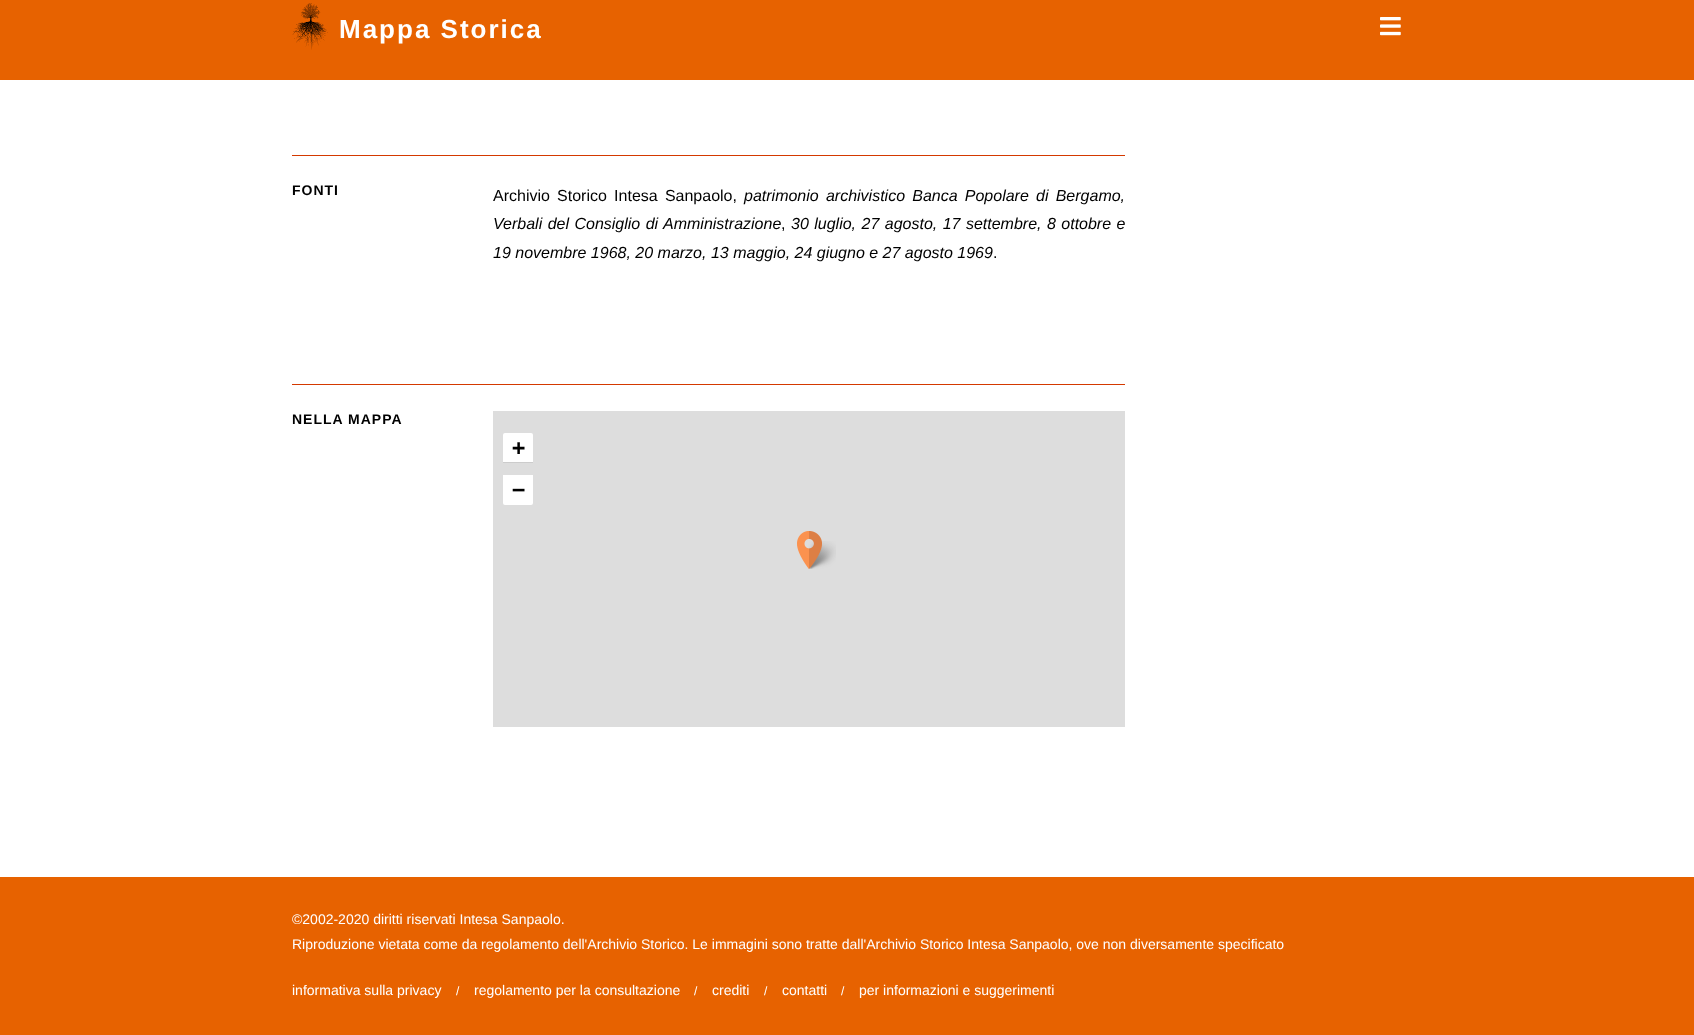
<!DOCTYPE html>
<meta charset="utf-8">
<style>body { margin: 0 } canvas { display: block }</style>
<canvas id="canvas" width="1694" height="1035"></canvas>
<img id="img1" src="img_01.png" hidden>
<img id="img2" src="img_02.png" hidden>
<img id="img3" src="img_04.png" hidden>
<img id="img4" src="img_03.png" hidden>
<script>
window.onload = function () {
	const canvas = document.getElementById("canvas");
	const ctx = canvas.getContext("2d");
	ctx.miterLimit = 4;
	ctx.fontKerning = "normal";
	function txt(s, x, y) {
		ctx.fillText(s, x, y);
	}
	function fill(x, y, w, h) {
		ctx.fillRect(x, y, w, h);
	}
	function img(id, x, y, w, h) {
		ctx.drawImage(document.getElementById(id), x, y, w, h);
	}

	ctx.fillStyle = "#FFFFFF";
	fill(0, 0, 1694, 1035);
	ctx.fillStyle = "#E76200";
	fill(0, 0, 1694, 80);
	img("img1", 292, 3, 36, 47);
	img("img2", 1380, 17, 21, 19);
	ctx.fillStyle = "#D43900";
	fill(292, 155, 833, 1);
	fill(292, 384, 833, 1);
	ctx.fillStyle = "#DDDDDD";
	fill(493, 411, 632, 316);
	ctx.fillStyle = "#FFFFFF";
	ctx.beginPath();
	ctx.roundRect(503, 433, 30, 30, [2, 2, 0, 0]);
	ctx.fill();
	ctx.fillStyle = "#CCCCCC";
	fill(503, 462, 30, 1);
	ctx.fillStyle = "#FFFFFF";
	ctx.beginPath();
	ctx.roundRect(503, 475, 30, 30, [0, 0, 2, 2]);
	ctx.fill();
	img("img3", 808, 541, 28, 28);
	img("img4", 797, 531, 25, 38);
	ctx.fillStyle = "#E76200";
	fill(0, 877, 1694, 158);
	ctx.letterSpacing = "2px";
	ctx.font = "bold 26px Liberation Sans";
	ctx.fillStyle = "#FFFFFF";
	txt("Mappa Storica", 339, 38);
	ctx.letterSpacing = "1px";
	ctx.font = "bold 14px Liberation Sans";
	ctx.fillStyle = "#000000";
	txt("FONTI", 292, 195);
	ctx.letterSpacing = "0px";
	ctx.wordSpacing = "2.75px";
	ctx.font = "16px Liberation Sans";
	txt("Archivio Storico Intesa Sanpaolo,", 493, 201);
	ctx.font = "italic 16px Liberation Sans";
	txt("patrimonio archivistico Banca Popolare di Bergamo,", 744, 201);
	ctx.wordSpacing = "1px";
	txt("Verbali del Consiglio di Amministrazione", 493, 229);
	ctx.wordSpacing = "0px";
	ctx.font = "16px Liberation Sans";
	txt(",", 781, 229);
	ctx.wordSpacing = "1px";
	ctx.font = "italic 16px Liberation Sans";
	txt("30 luglio, 27 agosto, 17 settembre, 8 ottobre e", 791, 229);
	ctx.wordSpacing = "0px";
	txt("19 novembre 1968, 20 marzo, 13 maggio, 24 giugno e 27 agosto 1969", 493, 258);
	ctx.font = "16px Liberation Sans";
	txt(".", 993, 258);
	ctx.letterSpacing = "1px";
	ctx.font = "bold 14px Liberation Sans";
	txt("NELLA MAPPA", 292, 424);
	ctx.letterSpacing = "0px";
	ctx.font = "bold 22px DejaVu Sans Mono";
	txt("+", 512, 455);
	txt("−", 512, 497);
	ctx.font = "14px Liberation Sans";
	ctx.fillStyle = "#FFFFFF";
	txt("©2002-2020 diritti riservati Intesa Sanpaolo.", 292, 924);
	txt("Riproduzione vietata come da regolamento dell'Archivio Storico. Le immagini sono tratte dall'Archivio Storico Intesa Sanpaolo, ove non diversamente specificato", 292, 949);
	txt("informativa sulla privacy", 292, 995);
	ctx.font = "12px Liberation Sans";
	txt("/", 456, 995);
	ctx.font = "14px Liberation Sans";
	txt("regolamento per la consultazione", 474, 995);
	ctx.font = "12px Liberation Sans";
	txt("/", 694, 995);
	ctx.font = "14px Liberation Sans";
	txt("crediti", 712, 995);
	ctx.font = "12px Liberation Sans";
	txt("/", 764, 995);
	ctx.font = "14px Liberation Sans";
	txt("contatti", 782, 995);
	ctx.font = "12px Liberation Sans";
	txt("/", 841, 995);
	ctx.font = "14px Liberation Sans";
	txt("per informazioni e suggerimenti", 859, 995);
};
</script>
